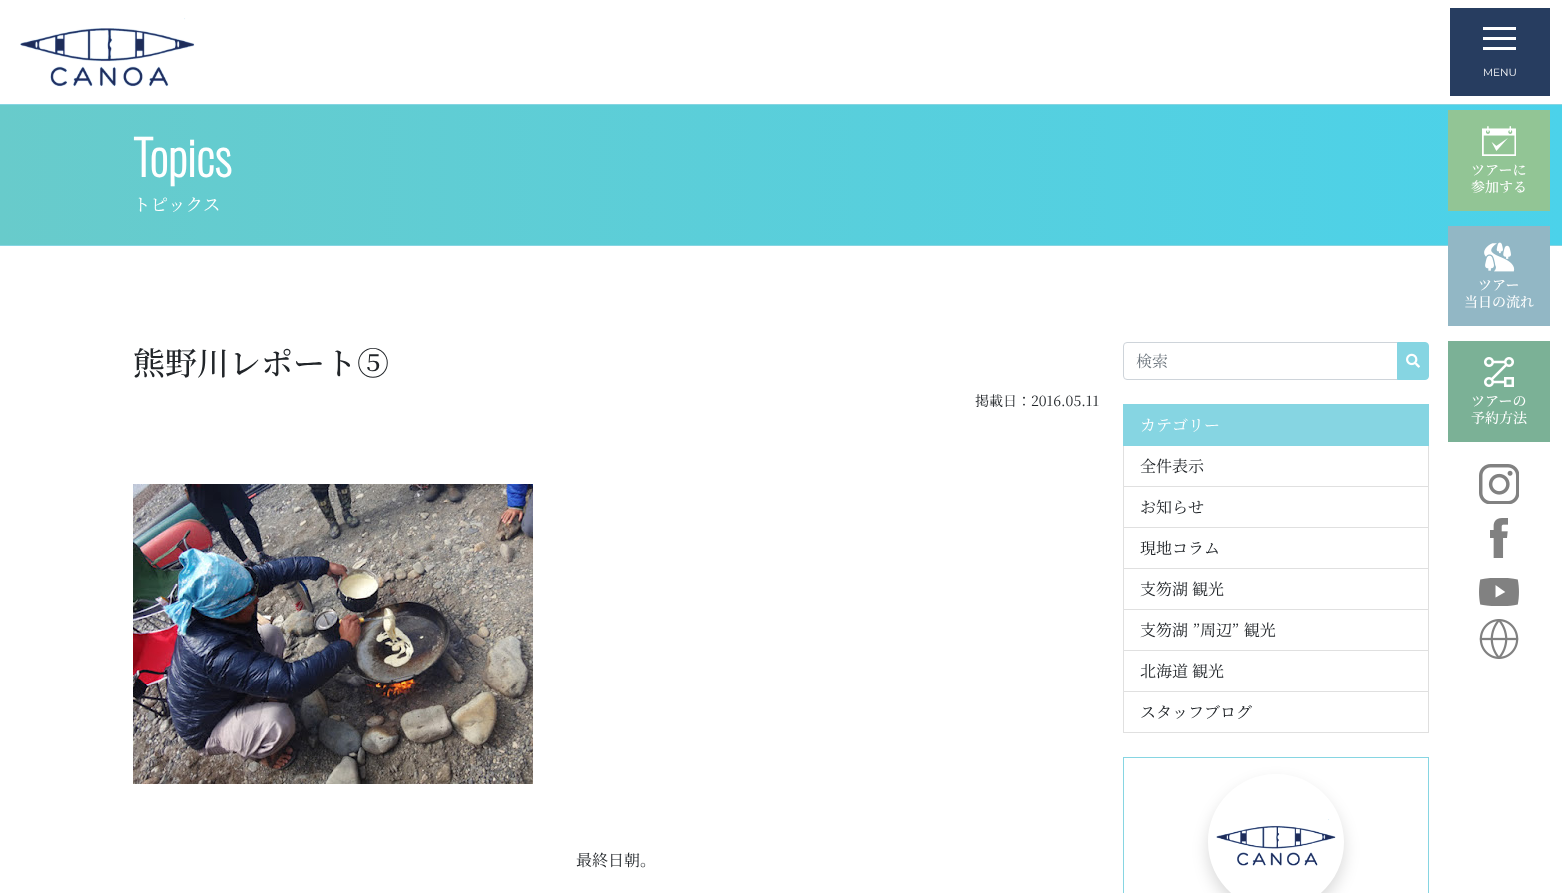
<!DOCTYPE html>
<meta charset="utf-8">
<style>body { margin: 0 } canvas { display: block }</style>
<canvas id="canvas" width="1562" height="893"></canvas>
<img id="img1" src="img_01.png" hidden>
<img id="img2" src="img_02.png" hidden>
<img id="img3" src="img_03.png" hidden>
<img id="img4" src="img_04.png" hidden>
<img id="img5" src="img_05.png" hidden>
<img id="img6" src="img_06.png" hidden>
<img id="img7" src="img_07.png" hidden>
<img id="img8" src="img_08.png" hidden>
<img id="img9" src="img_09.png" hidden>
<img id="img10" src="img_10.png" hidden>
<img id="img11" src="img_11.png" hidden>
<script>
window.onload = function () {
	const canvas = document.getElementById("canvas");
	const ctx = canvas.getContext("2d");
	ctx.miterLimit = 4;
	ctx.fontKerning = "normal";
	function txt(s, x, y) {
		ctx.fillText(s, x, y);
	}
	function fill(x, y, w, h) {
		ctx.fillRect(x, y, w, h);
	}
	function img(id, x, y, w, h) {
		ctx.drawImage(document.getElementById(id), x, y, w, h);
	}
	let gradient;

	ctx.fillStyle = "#FFFFFF";
	fill(0, 0, 1562, 893);
	gradient = ctx.createLinearGradient(0, 175, 1562, 175);
	gradient.addColorStop(0, "#68CBCB");
	gradient.addColorStop(1, "#4BD2EA");
	ctx.fillStyle = gradient;
	fill(0, 105, 1562, 140);
	ctx.fillStyle = "#86D5E2";
	fill(0, 104, 1562, 1);
	fill(0, 245, 1562, 1);
	img("img1", 133, 484, 400, 300);
	ctx.beginPath();
	ctx.roundRect(1123.5, 342.5, 274, 37, [3.5, 0, 0, 3.5]);
	ctx.strokeStyle = "#CED4DA";
	ctx.stroke();
	ctx.beginPath();
	ctx.roundRect(1397.5, 342.5, 31, 37, [0, 3.5, 3.5, 0]);
	ctx.fill();
	ctx.strokeStyle = "#86D5E2";
	ctx.stroke();
	img("img2", 1406, 353, 14, 15);
	fill(1123, 404, 306, 42);
	ctx.fillStyle = "#DFDFDF";
	ctx.beginPath();
	ctx.moveTo(1429, 446);
	ctx.lineTo(1429, 487);
	ctx.lineTo(1428, 486);
	ctx.lineTo(1428, 446);
	ctx.closePath();
	ctx.fill();
	ctx.fillStyle = "rgba(0, 0, 0, 0.12)";
	ctx.beginPath();
	ctx.moveTo(1429, 487);
	ctx.lineTo(1123, 487);
	ctx.lineTo(1124, 486);
	ctx.lineTo(1428, 486);
	ctx.closePath();
	ctx.fill();
	ctx.beginPath();
	ctx.moveTo(1123, 487);
	ctx.lineTo(1123, 446);
	ctx.lineTo(1124, 446);
	ctx.lineTo(1124, 486);
	ctx.closePath();
	ctx.fill();
	ctx.fillStyle = "#DFDFDF";
	ctx.beginPath();
	ctx.moveTo(1429, 487);
	ctx.lineTo(1429, 528);
	ctx.lineTo(1428, 527);
	ctx.lineTo(1428, 487);
	ctx.closePath();
	ctx.fill();
	ctx.fillStyle = "rgba(0, 0, 0, 0.12)";
	ctx.beginPath();
	ctx.moveTo(1429, 528);
	ctx.lineTo(1123, 528);
	ctx.lineTo(1124, 527);
	ctx.lineTo(1428, 527);
	ctx.closePath();
	ctx.fill();
	ctx.beginPath();
	ctx.moveTo(1123, 528);
	ctx.lineTo(1123, 487);
	ctx.lineTo(1124, 487);
	ctx.lineTo(1124, 527);
	ctx.closePath();
	ctx.fill();
	ctx.fillStyle = "#DFDFDF";
	ctx.beginPath();
	ctx.moveTo(1429, 528);
	ctx.lineTo(1429, 569);
	ctx.lineTo(1428, 568);
	ctx.lineTo(1428, 528);
	ctx.closePath();
	ctx.fill();
	ctx.fillStyle = "rgba(0, 0, 0, 0.12)";
	ctx.beginPath();
	ctx.moveTo(1429, 569);
	ctx.lineTo(1123, 569);
	ctx.lineTo(1124, 568);
	ctx.lineTo(1428, 568);
	ctx.closePath();
	ctx.fill();
	ctx.beginPath();
	ctx.moveTo(1123, 569);
	ctx.lineTo(1123, 528);
	ctx.lineTo(1124, 528);
	ctx.lineTo(1124, 568);
	ctx.closePath();
	ctx.fill();
	ctx.fillStyle = "#DFDFDF";
	ctx.beginPath();
	ctx.moveTo(1429, 569);
	ctx.lineTo(1429, 610);
	ctx.lineTo(1428, 609);
	ctx.lineTo(1428, 569);
	ctx.closePath();
	ctx.fill();
	ctx.fillStyle = "rgba(0, 0, 0, 0.12)";
	ctx.beginPath();
	ctx.moveTo(1429, 610);
	ctx.lineTo(1123, 610);
	ctx.lineTo(1124, 609);
	ctx.lineTo(1428, 609);
	ctx.closePath();
	ctx.fill();
	ctx.beginPath();
	ctx.moveTo(1123, 610);
	ctx.lineTo(1123, 569);
	ctx.lineTo(1124, 569);
	ctx.lineTo(1124, 609);
	ctx.closePath();
	ctx.fill();
	ctx.fillStyle = "#DFDFDF";
	ctx.beginPath();
	ctx.moveTo(1429, 610);
	ctx.lineTo(1429, 651);
	ctx.lineTo(1428, 650);
	ctx.lineTo(1428, 610);
	ctx.closePath();
	ctx.fill();
	ctx.fillStyle = "rgba(0, 0, 0, 0.12)";
	ctx.beginPath();
	ctx.moveTo(1429, 651);
	ctx.lineTo(1123, 651);
	ctx.lineTo(1124, 650);
	ctx.lineTo(1428, 650);
	ctx.closePath();
	ctx.fill();
	ctx.beginPath();
	ctx.moveTo(1123, 651);
	ctx.lineTo(1123, 610);
	ctx.lineTo(1124, 610);
	ctx.lineTo(1124, 650);
	ctx.closePath();
	ctx.fill();
	ctx.fillStyle = "#DFDFDF";
	ctx.beginPath();
	ctx.moveTo(1429, 651);
	ctx.lineTo(1429, 692);
	ctx.lineTo(1428, 691);
	ctx.lineTo(1428, 651);
	ctx.closePath();
	ctx.fill();
	ctx.fillStyle = "rgba(0, 0, 0, 0.12)";
	ctx.beginPath();
	ctx.moveTo(1429, 692);
	ctx.lineTo(1123, 692);
	ctx.lineTo(1124, 691);
	ctx.lineTo(1428, 691);
	ctx.closePath();
	ctx.fill();
	ctx.beginPath();
	ctx.moveTo(1123, 692);
	ctx.lineTo(1123, 651);
	ctx.lineTo(1124, 651);
	ctx.lineTo(1124, 691);
	ctx.closePath();
	ctx.fill();
	ctx.fillStyle = "#DFDFDF";
	ctx.beginPath();
	ctx.moveTo(1429, 692);
	ctx.lineTo(1429, 733);
	ctx.lineTo(1428, 732);
	ctx.lineTo(1428, 692);
	ctx.closePath();
	ctx.fill();
	ctx.fillStyle = "rgba(0, 0, 0, 0.12)";
	ctx.beginPath();
	ctx.moveTo(1429, 733);
	ctx.lineTo(1123, 733);
	ctx.lineTo(1124, 732);
	ctx.lineTo(1428, 732);
	ctx.closePath();
	ctx.fill();
	ctx.beginPath();
	ctx.moveTo(1123, 733);
	ctx.lineTo(1123, 692);
	ctx.lineTo(1124, 692);
	ctx.lineTo(1124, 732);
	ctx.closePath();
	ctx.fill();
	ctx.strokeRect(1123.5, 757.5, 305, 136);
	ctx.save();
	ctx.beginPath();
	ctx.moveTo(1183, 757);
	ctx.lineTo(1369, 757);
	ctx.lineTo(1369, 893);
	ctx.lineTo(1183, 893);
	ctx.closePath();
	ctx.moveTo(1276, 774);
	ctx.bezierCurveTo(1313.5, 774, 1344, 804.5, 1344, 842);
	ctx.bezierCurveTo(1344, 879.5, 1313.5, 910, 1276, 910);
	ctx.bezierCurveTo(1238.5, 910, 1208, 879.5, 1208, 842);
	ctx.bezierCurveTo(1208, 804.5, 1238.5, 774, 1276, 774);
	ctx.closePath();
	ctx.clip("evenodd");
	ctx.fillStyle = "rgba(0, 0, 0, 0.15)";
	ctx.filter = "blur(8px)";
	ctx.beginPath();
	ctx.roundRect(1208, 782, 136, 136, 68);
	ctx.fill();
	ctx.filter = "none";
	ctx.restore();
	img("img3", 1216, 819, 120, 47);
	img("img4", 20, 18, 175, 69);
	ctx.fillStyle = "#273D60";
	fill(1450, 8, 100, 88);
	ctx.fillStyle = "#FFFFFF";
	fill(1483, 27, 33, 3);
	fill(1483, 37, 33, 3);
	fill(1483, 47, 33, 3);
	ctx.fillStyle = "#92C595";
	fill(1448, 110, 102, 101);
	img("img5", 1482, 126, 34, 30);
	ctx.fillStyle = "#92B7C5";
	fill(1448, 226, 102, 100);
	img("img6", 1484, 242, 31, 30);
	ctx.fillStyle = "#7BB196";
	fill(1448, 341, 102, 101);
	img("img7", 1484, 357, 30, 30);
	img("img8", 1479, 464, 40, 40);
	img("img9", 1490, 518, 18, 40);
	img("img10", 1479, 578, 40, 28);
	img("img11", 1479, 619, 40, 40);
	ctx.font = "bold 48px Oswald";
	ctx.fillStyle = "#FFFFFF";
	txt("Topics", 133, 177);
	ctx.font = "17.5px Noto Serif JP";
	txt("トピックス", 133, 211);
	ctx.font = "500 32px Noto Serif JP";
	ctx.fillStyle = "#212529";
	txt("熊野川レポート⑤", 133, 375);
	ctx.font = "14px Noto Serif JP";
	txt("掲載日：2016.05.11", 975, 406);
	ctx.font = "16px Noto Serif JP";
	txt("最終日朝。", 576, 866);
	ctx.fillStyle = "#6C757D";
	txt("検索", 1136, 367);
	ctx.fillStyle = "#FFFFFF";
	txt("カテゴリー", 1140, 431);
	ctx.fillStyle = "#212529";
	txt("全件表示", 1140, 472);
	txt("お知らせ", 1140, 513);
	txt("現地コラム", 1140, 554);
	txt("支笏湖 観光", 1140, 595);
	ctx.wordSpacing = "1px";
	txt("支笏湖 ”周辺” 観光", 1140, 636);
	ctx.wordSpacing = "0px";
	txt("北海道 観光", 1140, 677);
	txt("スタッフブログ", 1140, 718);
	ctx.font = "10.5px Montserrat";
	ctx.fillStyle = "#FFFFFF";
	txt("MENU", 1483, 76);
	ctx.font = "500 14px Noto Serif JP";
	txt("ツアーに", 1471, 175);
	txt("参加する", 1471, 192);
	txt("ツアー", 1478, 290);
	txt("当日の流れ", 1464, 307);
	txt("ツアーの", 1471, 406);
	txt("予約方法", 1471, 423);
};
</script>
